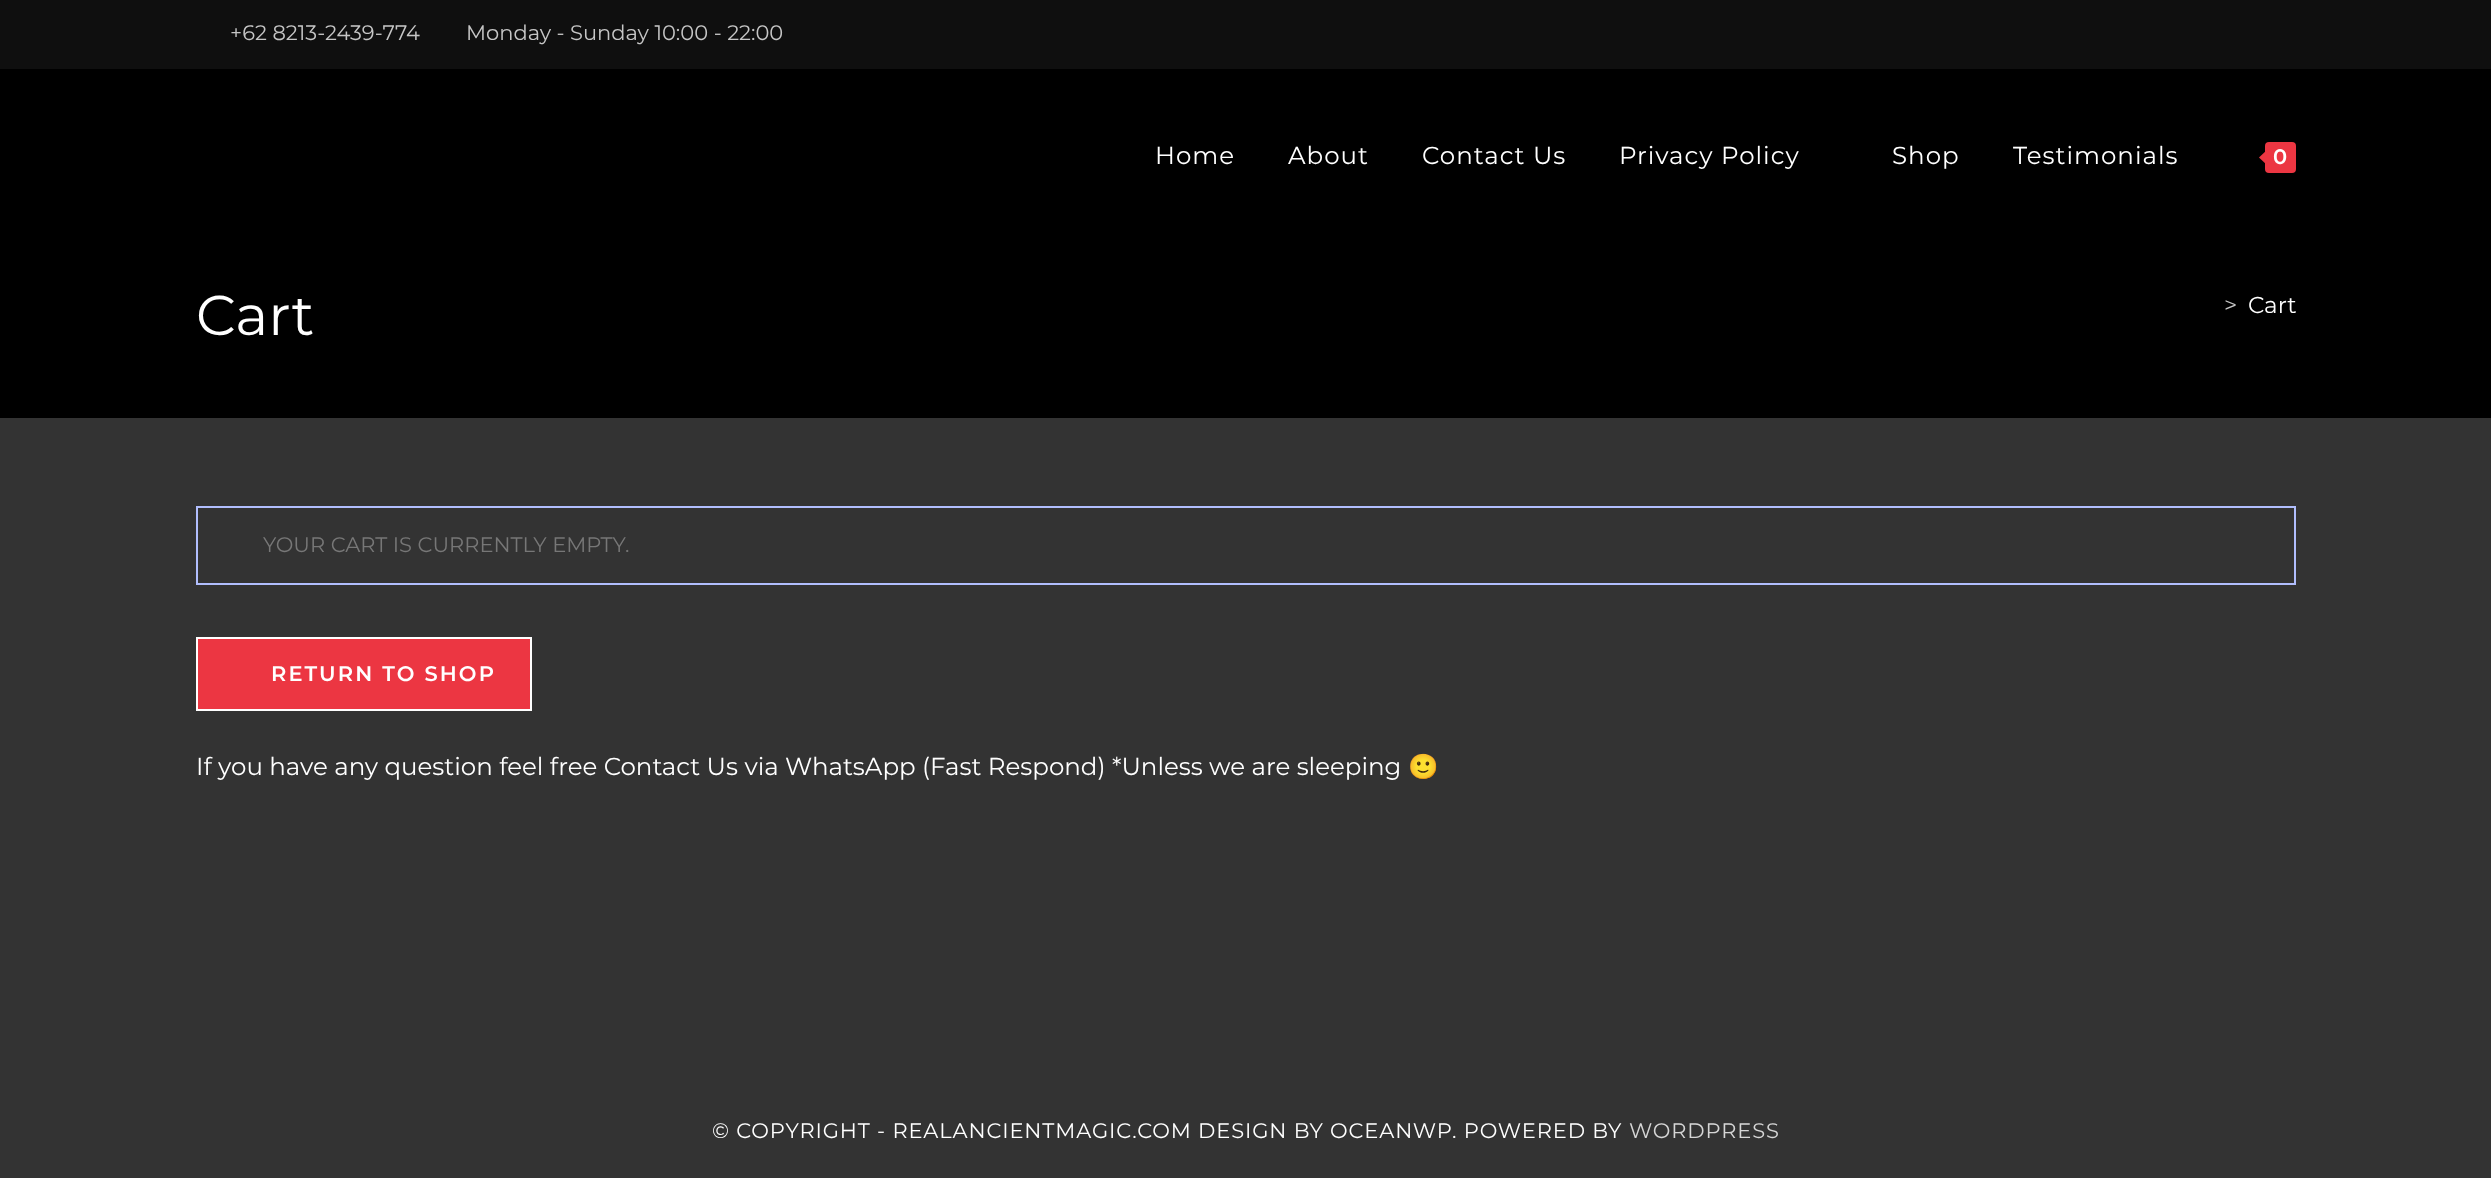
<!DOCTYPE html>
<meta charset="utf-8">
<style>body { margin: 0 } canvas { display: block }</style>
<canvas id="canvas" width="2491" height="1178"></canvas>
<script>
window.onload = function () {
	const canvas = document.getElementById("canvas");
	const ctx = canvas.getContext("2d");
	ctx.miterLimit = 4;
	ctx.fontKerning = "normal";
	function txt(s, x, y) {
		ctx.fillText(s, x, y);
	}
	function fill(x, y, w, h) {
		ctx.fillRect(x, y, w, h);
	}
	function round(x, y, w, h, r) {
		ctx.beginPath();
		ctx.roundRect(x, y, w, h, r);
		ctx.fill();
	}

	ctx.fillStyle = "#333333";
	fill(0, 0, 2491, 1178);
	ctx.fillStyle = "#0F0F0F";
	fill(0, 0, 2491, 69);
	ctx.fillStyle = "#000000";
	fill(0, 69, 2491, 349);
	ctx.fillStyle = "#EC3642";
	round(2265, 142, 31, 31, 4);
	ctx.beginPath();
	ctx.moveTo(2268, 149);
	ctx.lineTo(2268, 166);
	ctx.lineTo(2259, 157.5);
	ctx.closePath();
	ctx.fill();
	ctx.strokeStyle = "#B1BEFD";
	ctx.lineWidth = 2;
	ctx.strokeRect(197, 507, 2098, 77);
	ctx.beginPath();
	ctx.rect(197, 638, 334, 72);
	ctx.fill();
	ctx.strokeStyle = "#FFFFFF";
	ctx.stroke();
	ctx.font = "21px Montserrat";
	ctx.fillStyle = "#C6C6C6";
	txt("+62 8213-2439-774", 230, 40);
	txt("Monday - Sunday 10:00 - 22:00", 466, 40);
	ctx.letterSpacing = "1px";
	ctx.font = "24.5px Montserrat";
	ctx.fillStyle = "#FFFFFF";
	txt("Home", 1155, 164);
	txt("About", 1288, 164);
	txt("Contact Us", 1422, 164);
	txt("Privacy Policy", 1619, 164);
	txt("Shop", 1892, 164);
	txt("Testimonials", 2013, 164);
	ctx.letterSpacing = "0px";
	ctx.font = "600 21px Montserrat";
	txt("0", 2273, 164);
	ctx.font = "56px Montserrat";
	txt("Cart", 196, 335);
	ctx.font = "23px Montserrat";
	ctx.fillStyle = "#C6C6C6";
	txt(">", 2224, 313);
	ctx.fillStyle = "#FFFFFF";
	txt("Cart", 2248, 313);
	ctx.font = "21px Montserrat";
	ctx.fillStyle = "#777777";
	txt("YOUR CART IS CURRENTLY EMPTY.", 263, 552);
	ctx.letterSpacing = "2.1px";
	ctx.font = "600 21px Montserrat";
	ctx.fillStyle = "#FFFFFF";
	txt("RETURN TO SHOP", 271, 681);
	ctx.letterSpacing = "0px";
	ctx.font = "24.5px Montserrat";
	txt("If you have any question feel free Contact Us via WhatsApp (Fast Respond) *Unless we are sleeping", 196, 775);
	ctx.font = "24.5px Noto Color Emoji";
	txt("🙂", 1408, 775);
	ctx.letterSpacing = "0.88px";
	ctx.font = "21px Montserrat";
	txt("© COPYRIGHT - REALANCIENTMAGIC.COM DESIGN BY OCEANWP. POWERED BY", 712, 1138);
	ctx.fillStyle = "#D6D6D6";
	txt("WORDPRESS", 1629, 1138);
};
</script>
